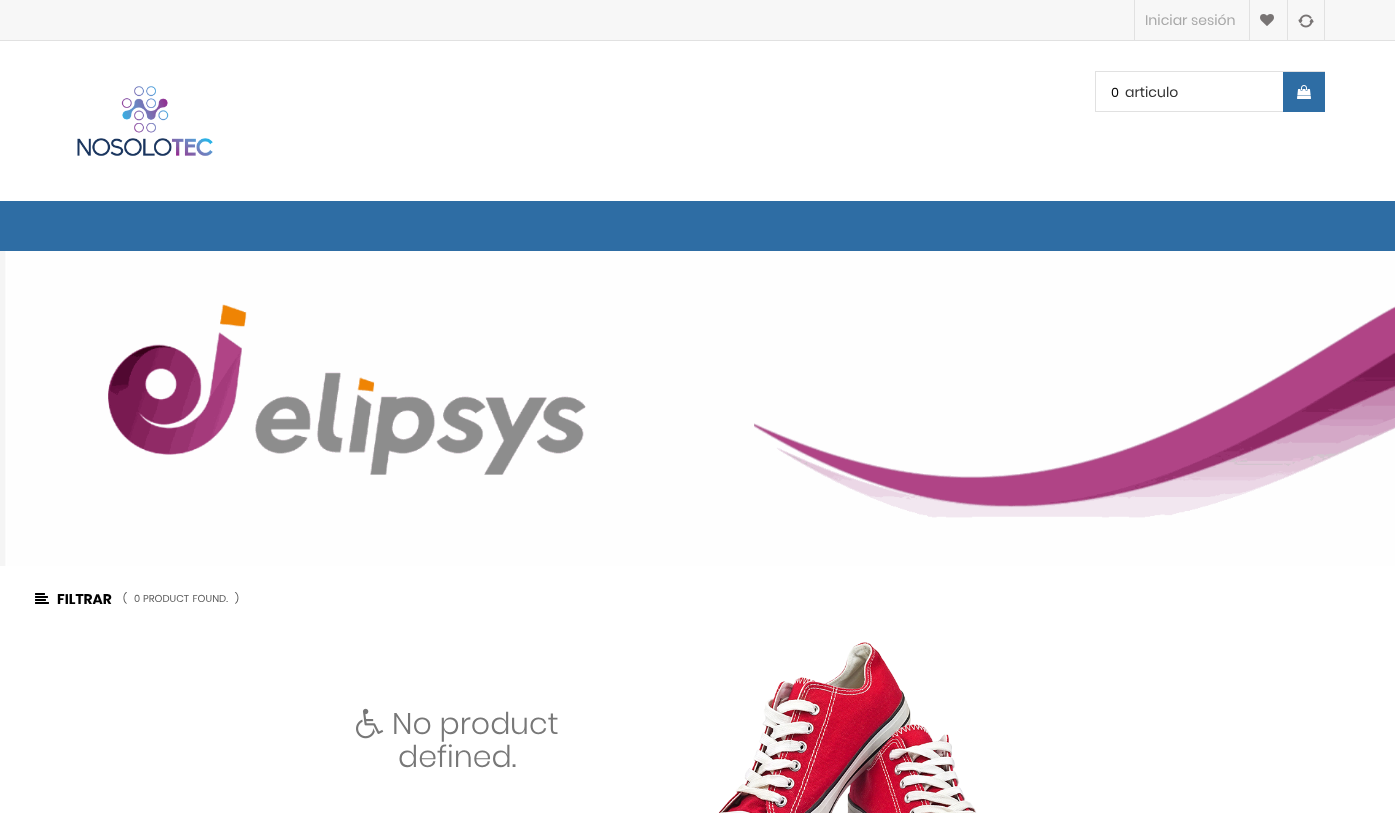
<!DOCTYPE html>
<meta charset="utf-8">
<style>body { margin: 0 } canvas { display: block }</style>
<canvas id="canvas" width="1395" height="813"></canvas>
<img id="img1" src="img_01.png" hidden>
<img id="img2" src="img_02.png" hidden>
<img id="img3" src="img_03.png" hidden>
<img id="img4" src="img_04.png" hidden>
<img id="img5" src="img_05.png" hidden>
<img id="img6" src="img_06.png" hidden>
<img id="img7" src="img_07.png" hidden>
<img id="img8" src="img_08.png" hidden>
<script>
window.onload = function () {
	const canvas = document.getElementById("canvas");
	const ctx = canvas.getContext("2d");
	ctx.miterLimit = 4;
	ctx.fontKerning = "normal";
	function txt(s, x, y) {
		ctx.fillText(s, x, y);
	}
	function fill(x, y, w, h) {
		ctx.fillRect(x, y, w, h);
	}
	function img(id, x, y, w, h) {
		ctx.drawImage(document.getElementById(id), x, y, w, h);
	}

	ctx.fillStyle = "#FFFFFF";
	fill(0, 0, 1395, 813);
	ctx.fillStyle = "#F7F7F7";
	fill(0, 0, 1395, 40);
	ctx.fillStyle = "#E1E1E1";
	fill(0, 40, 1395, 1);
	fill(1324, 0, 1, 40);
	fill(1134, 0, 1, 40);
	fill(1249, 0, 1, 40);
	img("img1", 1260, 14, 14, 12);
	fill(1287, 0, 1, 40);
	img("img2", 1298, 14, 16, 14);
	img("img3", 77, 86, 136, 70);
	fill(1095, 71, 230, 1);
	fill(1095, 111, 188, 1);
	fill(1095, 71, 1, 41);
	ctx.fillStyle = "#2E6DA4";
	fill(1283, 72, 42, 40);
	img("img4", 1297, 85, 14, 14);
	fill(0, 201, 1395, 50);
	ctx.fillStyle = "#F5F5F5";
	fill(0, 251, 7, 315);
	img("img5", 5, 251, 1390, 315);
	img("img6", 35, 593, 14, 11);
	img("img7", 356, 708, 28, 31);
	img("img8", 718, 642, 259, 171);
	ctx.font = "14px Poppins";
	ctx.fillStyle = "#A8A8A8";
	txt("Iniciar sesión", 1145, 25);
	ctx.font = "13px Poppins";
	ctx.fillStyle = "#000000";
	txt("0", 1111, 97);
	ctx.font = "14px Poppins";
	ctx.fillStyle = "#333333";
	txt("articulo", 1125, 97);
	ctx.font = "bold 14px Poppins";
	ctx.fillStyle = "#000000";
	txt("FILTRAR", 57, 604);
	ctx.font = "10px Poppins";
	ctx.fillStyle = "#5F5F5F";
	txt("(", 123, 602);
	txt("0", 134, 602);
	ctx.wordSpacing = "1px";
	txt("PRODUCT FOUND.", 143, 602);
	ctx.wordSpacing = "0px";
	txt(")", 235, 602);
	ctx.font = "300 30px Poppins";
	ctx.fillStyle = "#777777";
	txt("No product", 392, 734);
	txt("defined.", 398, 767);
};
</script>
